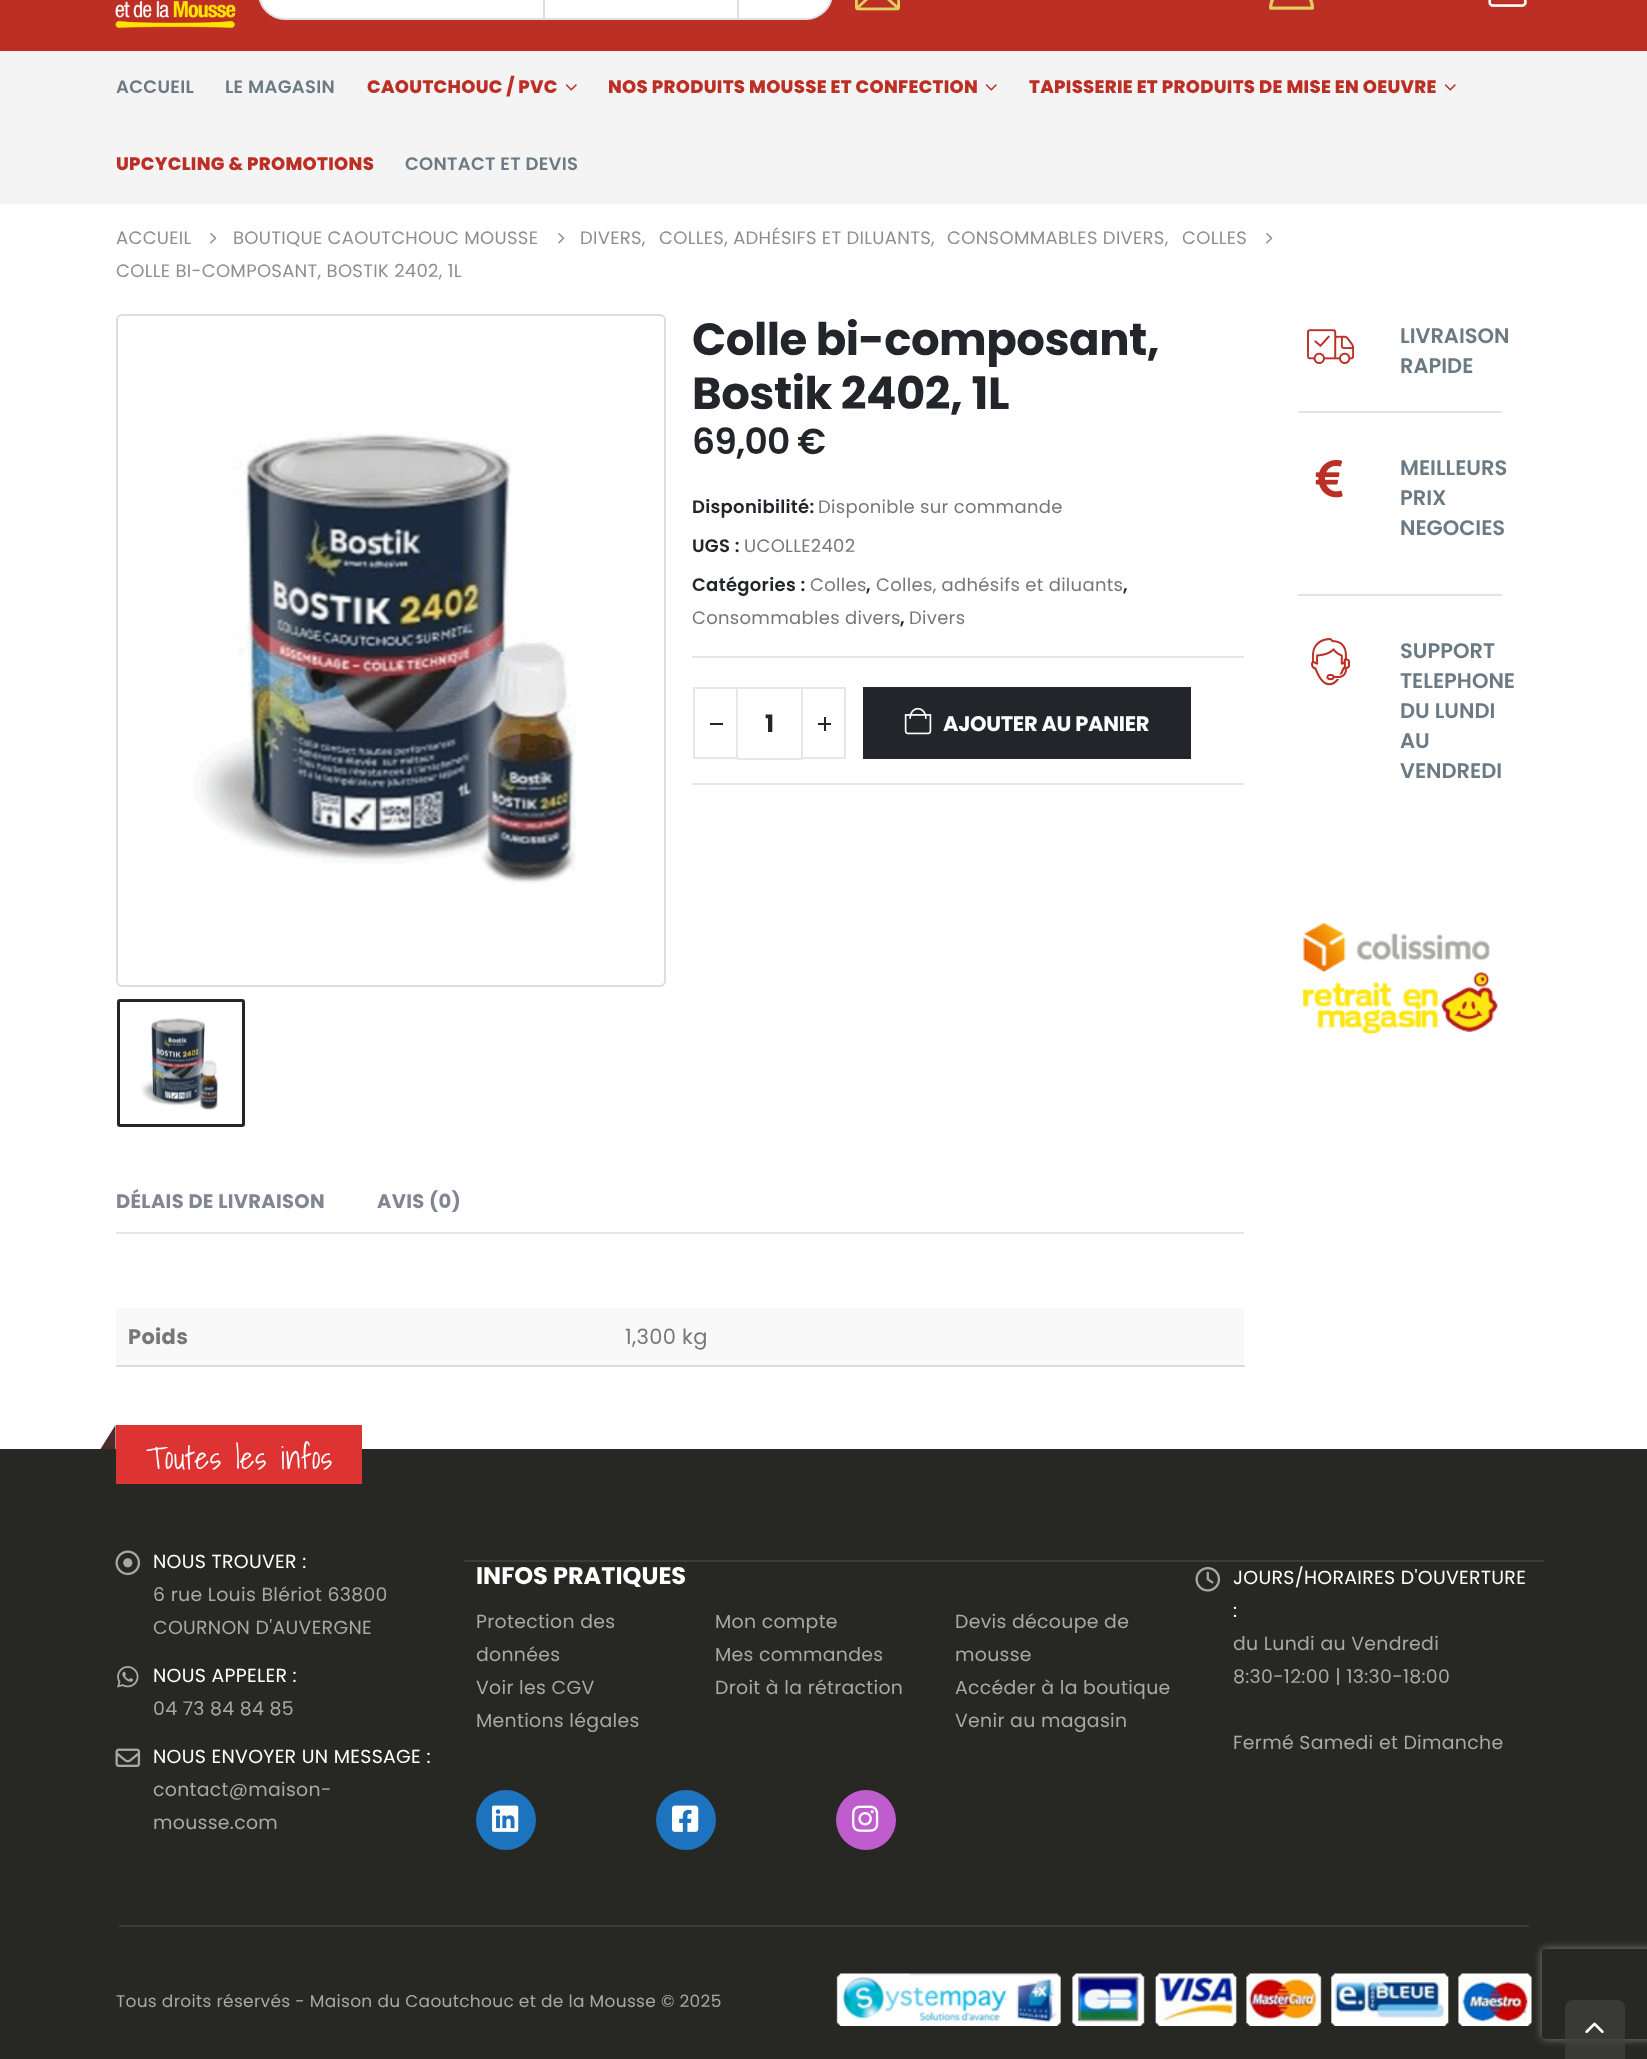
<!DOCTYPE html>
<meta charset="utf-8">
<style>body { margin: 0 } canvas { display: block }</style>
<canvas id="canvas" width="1647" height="2059"></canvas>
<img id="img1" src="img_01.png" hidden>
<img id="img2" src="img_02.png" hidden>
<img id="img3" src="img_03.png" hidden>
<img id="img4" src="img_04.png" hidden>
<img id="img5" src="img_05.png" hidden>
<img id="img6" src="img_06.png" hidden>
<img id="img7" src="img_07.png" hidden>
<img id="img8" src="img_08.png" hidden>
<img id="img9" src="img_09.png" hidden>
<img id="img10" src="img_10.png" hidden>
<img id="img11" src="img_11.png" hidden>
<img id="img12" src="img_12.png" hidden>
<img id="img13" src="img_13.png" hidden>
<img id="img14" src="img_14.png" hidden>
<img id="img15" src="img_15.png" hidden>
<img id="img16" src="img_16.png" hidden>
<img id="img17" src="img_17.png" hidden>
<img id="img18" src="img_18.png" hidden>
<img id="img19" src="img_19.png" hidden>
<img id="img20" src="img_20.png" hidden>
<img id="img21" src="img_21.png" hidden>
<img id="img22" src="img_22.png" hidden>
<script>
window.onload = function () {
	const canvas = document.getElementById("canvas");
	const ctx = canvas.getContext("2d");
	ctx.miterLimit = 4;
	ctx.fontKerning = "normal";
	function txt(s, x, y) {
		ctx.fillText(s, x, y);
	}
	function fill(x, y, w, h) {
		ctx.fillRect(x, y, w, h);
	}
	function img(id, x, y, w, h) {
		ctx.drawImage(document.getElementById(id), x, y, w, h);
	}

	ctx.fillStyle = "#FFFFFF";
	fill(0, 0, 1647, 2059);
	ctx.fillStyle = "#BC2F25";
	fill(0, 0, 1647, 51);
	img("img1", 115, 1, 121, 27);
	ctx.fillStyle = "#FFFFFF";
	ctx.beginPath();
	ctx.roundRect(259, -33, 573, 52, 30.5);
	ctx.fill();
	ctx.strokeStyle = "#DBE0E2";
	ctx.lineWidth = 2;
	ctx.stroke();
	ctx.fillStyle = "#DBE0E2";
	fill(543, 0, 2, 18);
	fill(737, 0, 2, 18);
	img("img2", 855, 0, 45, 11);
	img("img3", 1269, 0, 45, 10);
	img("img4", 1488, 0, 39, 7);
	ctx.fillStyle = "#F4F4F4";
	fill(0, 51, 1647, 153);
	img("img5", 565, 84, 12, 7);
	img("img5", 985, 84, 12, 7);
	img("img5", 1444, 84, 12, 7);
	img("img6", 210, 233, 7, 11);
	img("img6", 558, 233, 7, 11);
	img("img6", 1266, 233, 7, 11);
	ctx.beginPath();
	ctx.roundRect(117, 315, 548, 671, 5);
	ctx.strokeStyle = "#DDDDDD";
	ctx.stroke();
	img("img7", 192, 427, 385, 457);
	ctx.beginPath();
	ctx.roundRect(118.5, 1000.5, 125, 125, 1.5);
	ctx.strokeStyle = "#222529";
	ctx.lineWidth = 3;
	ctx.stroke();
	img("img8", 141, 1018, 78, 92);
	ctx.fillStyle = "#E7E7E7";
	fill(692, 656, 552, 2);
	fill(692, 783, 552, 2);
	fill(737, 687, 66, 2);
	fill(737, 758, 66, 2);
	ctx.strokeStyle = "#E7E7E7";
	ctx.lineWidth = 2;
	ctx.strokeRect(694, 688, 43, 70);
	ctx.fillStyle = "#222529";
	fill(710, 723, 13, 2);
	ctx.strokeRect(802, 688, 43, 70);
	fill(818, 723, 13, 2);
	fill(824, 717, 2, 14);
	fill(863, 687, 328, 72);
	img("img9", 904, 707, 28, 28);
	ctx.fillStyle = "#E7E7E7";
	fill(116, 1232, 1128, 2);
	ctx.fillStyle = "#F9F9F9";
	fill(116, 1308, 1128, 57);
	ctx.fillStyle = "#DDDDDD";
	fill(116, 1365, 1129, 2);
	img("img10", 1307, 329, 47, 35);
	ctx.fillStyle = "#DEE5E8";
	fill(1298, 411, 204, 2);
	img("img11", 1315, 459, 28, 39);
	fill(1298, 594, 204, 2);
	img("img12", 1311, 638, 39, 48);
	img("img13", 1303, 922, 195, 112);
	ctx.fillStyle = "#272723";
	fill(0, 1449, 1647, 610);
	ctx.fillStyle = "#DD3333";
	fill(116, 1425, 246, 59);
	ctx.fillStyle = "#4C2B2A";
	ctx.beginPath();
	ctx.moveTo(115.5, 1425);
	ctx.lineTo(115.5, 1449);
	ctx.lineTo(100.5, 1449);
	ctx.closePath();
	ctx.fill();
	img("img14", 115, 1550, 26, 26);
	img("img15", 117, 1666, 22, 22);
	img("img16", 115, 1748, 26, 19);
	ctx.fillStyle = "#3D3D38";
	fill(464, 1560, 1080, 2);
	ctx.fillStyle = "#1E73BE";
	ctx.beginPath();
	ctx.arc(506, 1820, 30, 0, Math.PI * 2);
	ctx.fill();
	img("img17", 492, 1805, 27, 27);
	ctx.beginPath();
	ctx.arc(686, 1820, 30, 0, Math.PI * 2);
	ctx.fill();
	img("img18", 672, 1805, 27, 27);
	ctx.fillStyle = "#BF5CCE";
	ctx.beginPath();
	ctx.arc(866, 1820, 30, 0, Math.PI * 2);
	ctx.fill();
	img("img19", 852, 1805, 27, 27);
	img("img20", 1195, 1567, 26, 25);
	ctx.fillStyle = "#3D3D38";
	fill(119, 1925, 1410, 2);
	img("img21", 836, 1973, 696, 53);
	ctx.save();
	ctx.beginPath();
	ctx.moveTo(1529, 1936);
	ctx.lineTo(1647, 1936);
	ctx.lineTo(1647, 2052);
	ctx.lineTo(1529, 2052);
	ctx.closePath();
	ctx.moveTo(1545, 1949);
	ctx.lineTo(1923, 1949);
	ctx.bezierCurveTo(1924.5, 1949, 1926, 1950.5, 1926, 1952);
	ctx.lineTo(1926, 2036);
	ctx.bezierCurveTo(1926, 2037.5, 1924.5, 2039, 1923, 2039);
	ctx.lineTo(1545, 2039);
	ctx.bezierCurveTo(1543.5, 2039, 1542, 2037.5, 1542, 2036);
	ctx.lineTo(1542, 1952);
	ctx.bezierCurveTo(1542, 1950.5, 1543.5, 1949, 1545, 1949);
	ctx.closePath();
	ctx.clip("evenodd");
	ctx.fillStyle = "#808080";
	ctx.filter = "blur(4px)";
	ctx.beginPath();
	ctx.roundRect(1542, 1949, 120, 90, 3);
	ctx.fill();
	ctx.filter = "none";
	ctx.restore();
	ctx.fillStyle = "rgba(64, 64, 64, 0.75)";
	ctx.beginPath();
	ctx.moveTo(1573, 2000);
	ctx.lineTo(1617, 2000);
	ctx.bezierCurveTo(1621.5, 2000, 1625, 2003.5, 1625, 2008);
	ctx.lineTo(1625, 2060);
	ctx.lineTo(1565, 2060);
	ctx.lineTo(1565, 2008);
	ctx.bezierCurveTo(1565, 2003.5, 1568.5, 2000, 1573, 2000);
	ctx.closePath();
	ctx.fill();
	img("img22", 1585, 2022, 19, 11);
	ctx.letterSpacing = "0.3px";
	ctx.font = "600 18px Poppins";
	ctx.fillStyle = "#6B7A83";
	txt("ACCUEIL", 116, 93);
	txt("LE MAGASIN", 225, 93);
	ctx.font = "800 18px Poppins";
	ctx.fillStyle = "#BC2F25";
	txt("CAOUTCHOUC / PVC", 367, 93);
	txt("NOS PRODUITS MOUSSE ET CONFECTION", 608, 93);
	txt("TAPISSERIE ET PRODUITS DE MISE EN OEUVRE", 1029, 93);
	txt("UPCYCLING & PROMOTIONS", 116, 170);
	ctx.font = "600 18px Poppins";
	ctx.fillStyle = "#6B7A83";
	txt("CONTACT ET DEVIS", 405, 170);
	ctx.font = "18px Poppins";
	ctx.fillStyle = "#8E8E8E";
	txt("ACCUEIL", 116, 244);
	txt("BOUTIQUE CAOUTCHOUC MOUSSE", 233, 244);
	txt("DIVERS,", 580, 244);
	txt("COLLES, ADHÉSIFS ET DILUANTS,", 659, 244);
	txt("CONSOMMABLES DIVERS,", 947, 244);
	txt("COLLES", 1182, 244);
	txt("COLLE BI-COMPOSANT, BOSTIK 2402, 1L", 116, 277);
	ctx.letterSpacing = "-0.5px";
	ctx.font = "bold 45px Poppins";
	ctx.fillStyle = "#222529";
	txt("Colle bi-composant,", 692, 355);
	txt("Bostik 2402, 1L", 692, 409);
	ctx.letterSpacing = "-0.75px";
	ctx.font = "600 36px Poppins";
	txt("69,00 €", 692, 454);
	ctx.letterSpacing = "0.3px";
	ctx.font = "600 18px Poppins";
	txt("Disponibilité:", 692, 513);
	ctx.font = "18px Poppins";
	ctx.fillStyle = "#777777";
	txt("Disponible sur commande", 818, 513);
	ctx.font = "600 18px Poppins";
	ctx.fillStyle = "#222529";
	txt("UGS :", 692, 552);
	ctx.font = "18px Poppins";
	ctx.fillStyle = "#777777";
	txt("UCOLLE2402", 744, 552);
	ctx.font = "600 18px Poppins";
	ctx.fillStyle = "#222529";
	txt("Catégories :", 692, 591);
	ctx.font = "18px Poppins";
	ctx.fillStyle = "#777777";
	txt("Colles", 810, 591);
	ctx.font = "600 18px Poppins";
	ctx.fillStyle = "#222529";
	txt(",", 866, 591);
	ctx.font = "18px Poppins";
	ctx.fillStyle = "#777777";
	txt("Colles, adhésifs et diluants", 876, 591);
	ctx.font = "600 18px Poppins";
	ctx.fillStyle = "#222529";
	txt(",", 1123, 591);
	ctx.font = "18px Poppins";
	ctx.fillStyle = "#777777";
	txt("Consommables divers", 692, 624);
	ctx.font = "600 18px Poppins";
	ctx.fillStyle = "#222529";
	txt(",", 900, 624);
	ctx.font = "18px Poppins";
	ctx.fillStyle = "#777777";
	txt("Divers", 909, 624);
	ctx.letterSpacing = "0px";
	ctx.font = "bold 24px Poppins";
	ctx.fillStyle = "#222529";
	txt("1", 765, 732);
	ctx.letterSpacing = "-0.3px";
	ctx.font = "bold 21px Poppins";
	ctx.fillStyle = "#FFFFFF";
	txt("AJOUTER AU PANIER", 943, 731);
	ctx.letterSpacing = "0.3px";
	ctx.font = "bold 19.5px Poppins";
	ctx.fillStyle = "#818692";
	txt("DÉLAIS DE LIVRAISON", 116, 1208);
	txt("AVIS (0)", 377, 1208);
	ctx.font = "bold 21px Poppins";
	ctx.fillStyle = "#777777";
	txt("Poids", 128, 1344);
	ctx.font = "21px Poppins";
	txt("1,300 kg", 625, 1344);
	ctx.letterSpacing = "0px";
	ctx.font = "600 21px Poppins";
	ctx.fillStyle = "#6B7A83";
	txt("LIVRAISON", 1400, 343);
	txt("RAPIDE", 1400, 373);
	txt("MEILLEURS", 1400, 475);
	txt("PRIX", 1400, 505);
	txt("NEGOCIES", 1400, 535);
	txt("SUPPORT", 1400, 658);
	txt("TELEPHONE", 1400, 688);
	txt("DU LUNDI", 1400, 718);
	txt("AU", 1400, 748);
	txt("VENDREDI", 1400, 778);
	ctx.letterSpacing = "0.3px";
	ctx.font = "300 31.25px Shadows Into Light";
	ctx.fillStyle = "#FFFFFF";
	txt("Toutes les infos", 146, 1469);
	ctx.font = "18.9px Poppins";
	txt("NOUS TROUVER :", 153, 1568);
	ctx.fillStyle = "#A8A8A8";
	txt("6 rue Louis Blériot 63800", 153, 1601);
	txt("COURNON D'AUVERGNE", 153, 1634);
	ctx.fillStyle = "#FFFFFF";
	txt("NOUS APPELER :", 153, 1682);
	ctx.fillStyle = "#A8A8A8";
	txt("04 73 84 84 85", 153, 1715);
	ctx.fillStyle = "#FFFFFF";
	txt("NOUS ENVOYER UN MESSAGE :", 153, 1763);
	ctx.fillStyle = "#A8A8A8";
	txt("contact@maison-", 153, 1796);
	txt("mousse.com", 153, 1829);
	ctx.letterSpacing = "0px";
	ctx.font = "bold 24px Poppins";
	ctx.fillStyle = "#FFFFFF";
	txt("INFOS PRATIQUES", 476, 1584);
	ctx.letterSpacing = "0.3px";
	ctx.font = "18.9px Poppins";
	ctx.fillStyle = "#A8A8A8";
	txt("Protection des", 476, 1628);
	txt("données", 476, 1661);
	txt("Voir les CGV", 476, 1694);
	txt("Mentions légales", 476, 1727);
	txt("Mon compte", 715, 1628);
	txt("Mes commandes", 715, 1661);
	txt("Droit à la rétraction", 715, 1694);
	txt("Devis découpe de", 955, 1628);
	txt("mousse", 955, 1661);
	txt("Accéder à la boutique", 955, 1694);
	txt("Venir au magasin", 955, 1727);
	ctx.fillStyle = "#FFFFFF";
	txt("JOURS/HORAIRES D'OUVERTURE", 1233, 1584);
	txt(":", 1233, 1617);
	ctx.fillStyle = "#A8A8A8";
	txt("du Lundi au Vendredi", 1233, 1650);
	txt("8:30-12:00 | 13:30-18:00", 1233, 1683);
	txt("Fermé Samedi et Dimanche", 1233, 1749);
	ctx.font = "17px Poppins";
	txt("Tous droits réservés - Maison du Caoutchouc et de la Mousse © 2025", 116, 2007);
};
</script>
